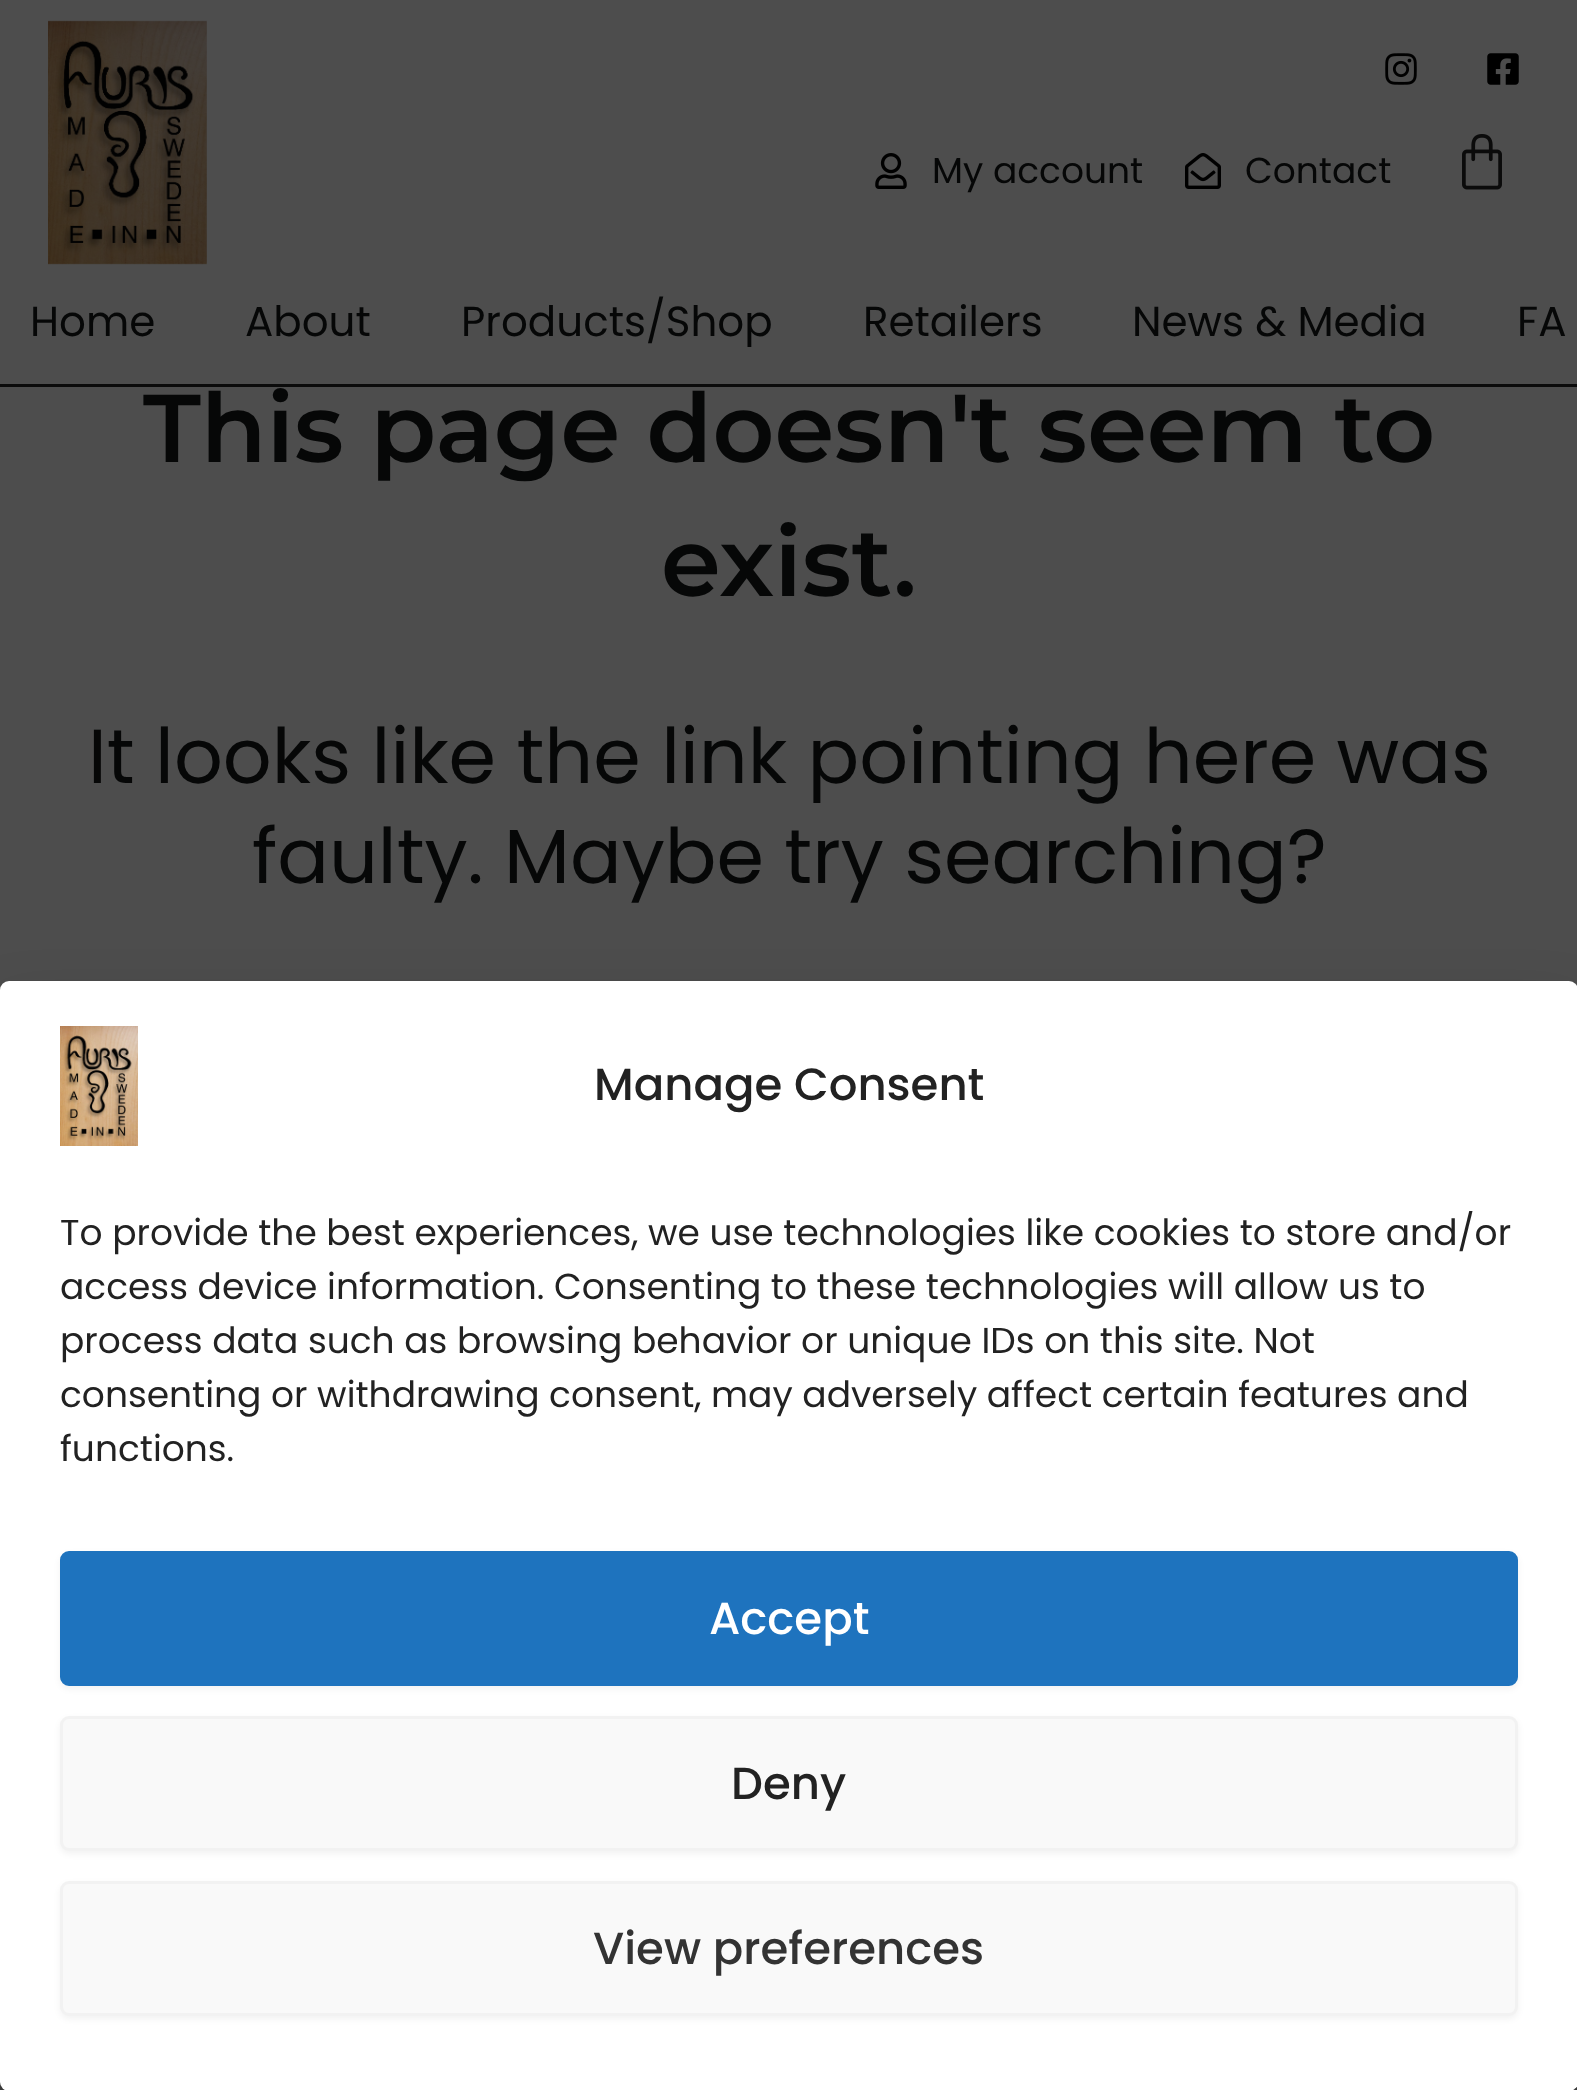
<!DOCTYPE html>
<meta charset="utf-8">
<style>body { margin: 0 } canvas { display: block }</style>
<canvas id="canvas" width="1577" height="2090"></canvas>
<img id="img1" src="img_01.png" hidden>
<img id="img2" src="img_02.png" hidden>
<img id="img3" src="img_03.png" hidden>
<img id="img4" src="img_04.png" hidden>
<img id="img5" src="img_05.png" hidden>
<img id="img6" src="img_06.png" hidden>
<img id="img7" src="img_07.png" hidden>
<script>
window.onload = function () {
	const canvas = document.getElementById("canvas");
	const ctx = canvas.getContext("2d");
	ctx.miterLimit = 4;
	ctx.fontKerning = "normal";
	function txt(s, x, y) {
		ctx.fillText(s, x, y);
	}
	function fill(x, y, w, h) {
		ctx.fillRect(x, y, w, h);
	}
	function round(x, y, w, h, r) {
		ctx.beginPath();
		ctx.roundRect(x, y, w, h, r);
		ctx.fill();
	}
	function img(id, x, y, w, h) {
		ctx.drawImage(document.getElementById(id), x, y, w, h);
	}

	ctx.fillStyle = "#4D4D4D";
	fill(0, 0, 1577, 2090);
	ctx.fillStyle = "#0B0B0B";
	fill(0, 384, 1577, 3);
	img("img1", 48, 20, 159, 245);
	img("img2", 1385, 53, 32, 32);
	img("img3", 1487, 53, 32, 32);
	img("img4", 875, 153, 32, 36);
	img("img5", 1185, 153, 36, 36);
	img("img6", 1462, 134, 40, 56);
	ctx.fillStyle = "#4A4A4A";
	fill(0, 2082, 1577, 8);
	ctx.fillStyle = "rgba(0, 0, 0, 0.23)";
	ctx.filter = "blur(9px)";
	ctx.beginPath();
	ctx.roundRect(0, 999, 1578, 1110, 9);
	ctx.fill();
	ctx.filter = "none";
	ctx.fillStyle = "rgba(0, 0, 0, 0.19)";
	ctx.filter = "blur(30px)";
	ctx.beginPath();
	ctx.roundRect(0, 1011, 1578, 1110, 9);
	ctx.fill();
	ctx.filter = "none";
	ctx.fillStyle = "#FFFFFF";
	round(0, 981, 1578, 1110, 9);
	img("img7", 60, 1026, 78, 120);
	ctx.fillStyle = "rgba(0, 0, 0, 0.05)";
	ctx.filter = "blur(3px)";
	ctx.beginPath();
	ctx.roundRect(60, 1554, 1458, 135, 9);
	ctx.fill();
	ctx.filter = "none";
	ctx.fillStyle = "#1E73BE";
	ctx.beginPath();
	ctx.roundRect(61.5, 1552.5, 1455, 132, 7.5);
	ctx.fill();
	ctx.strokeStyle = "#1E73BE";
	ctx.lineWidth = 3;
	ctx.stroke();
	ctx.fillStyle = "rgba(0, 0, 0, 0.05)";
	ctx.filter = "blur(3px)";
	ctx.beginPath();
	ctx.roundRect(60, 1719, 1458, 135, 9);
	ctx.fill();
	ctx.filter = "none";
	ctx.fillStyle = "#F9F9F9";
	ctx.beginPath();
	ctx.roundRect(61.5, 1717.5, 1455, 132, 7.5);
	ctx.fill();
	ctx.strokeStyle = "#F2F2F2";
	ctx.stroke();
	ctx.fillStyle = "rgba(0, 0, 0, 0.05)";
	ctx.filter = "blur(3px)";
	ctx.beginPath();
	ctx.roundRect(60, 1884, 1458, 135, 9);
	ctx.fill();
	ctx.filter = "none";
	ctx.fillStyle = "#F9F9F9";
	ctx.beginPath();
	ctx.roundRect(61.5, 1882.5, 1455, 132, 7.5);
	ctx.fill();
	ctx.stroke();
	ctx.font = "36px Poppins";
	ctx.fillStyle = "#060707";
	txt("My account", 932, 183);
	txt("Contact", 1245, 183);
	ctx.font = "42px Poppins";
	txt("Home", 30, 336);
	txt("About", 245, 336);
	txt("Products/Shop", 461, 336);
	txt("Retailers", 863, 336);
	txt("News & Media", 1132, 336);
	txt("FA", 1517, 336);
	ctx.font = "600 96px Montserrat";
	txt("This page doesn't seem to", 143, 462);
	txt("exist.", 661, 596);
	ctx.font = "76.5px Poppins";
	txt("It looks like the link pointing here was", 88, 783);
	txt("faulty. Maybe try searching?", 252, 883);
	ctx.font = "500 45px Poppins";
	ctx.fillStyle = "#222222";
	txt("Manage Consent", 594, 1100);
	ctx.font = "36px Poppins";
	txt("To provide the best experiences, we use technologies like cookies to store and/or", 60, 1245);
	txt("access device information. Consenting to these technologies will allow us to", 60, 1299);
	txt("process data such as browsing behavior or unique IDs on this site. Not", 60, 1353);
	txt("consenting or withdrawing consent, may adversely affect certain features and", 60, 1407);
	txt("functions.", 60, 1461);
	ctx.font = "500 45px Poppins";
	ctx.fillStyle = "#FFFFFF";
	txt("Accept", 709, 1634);
	ctx.fillStyle = "#222222";
	txt("Deny", 731, 1799);
	ctx.fillStyle = "#333333";
	txt("View preferences", 593, 1964);
};
</script>
